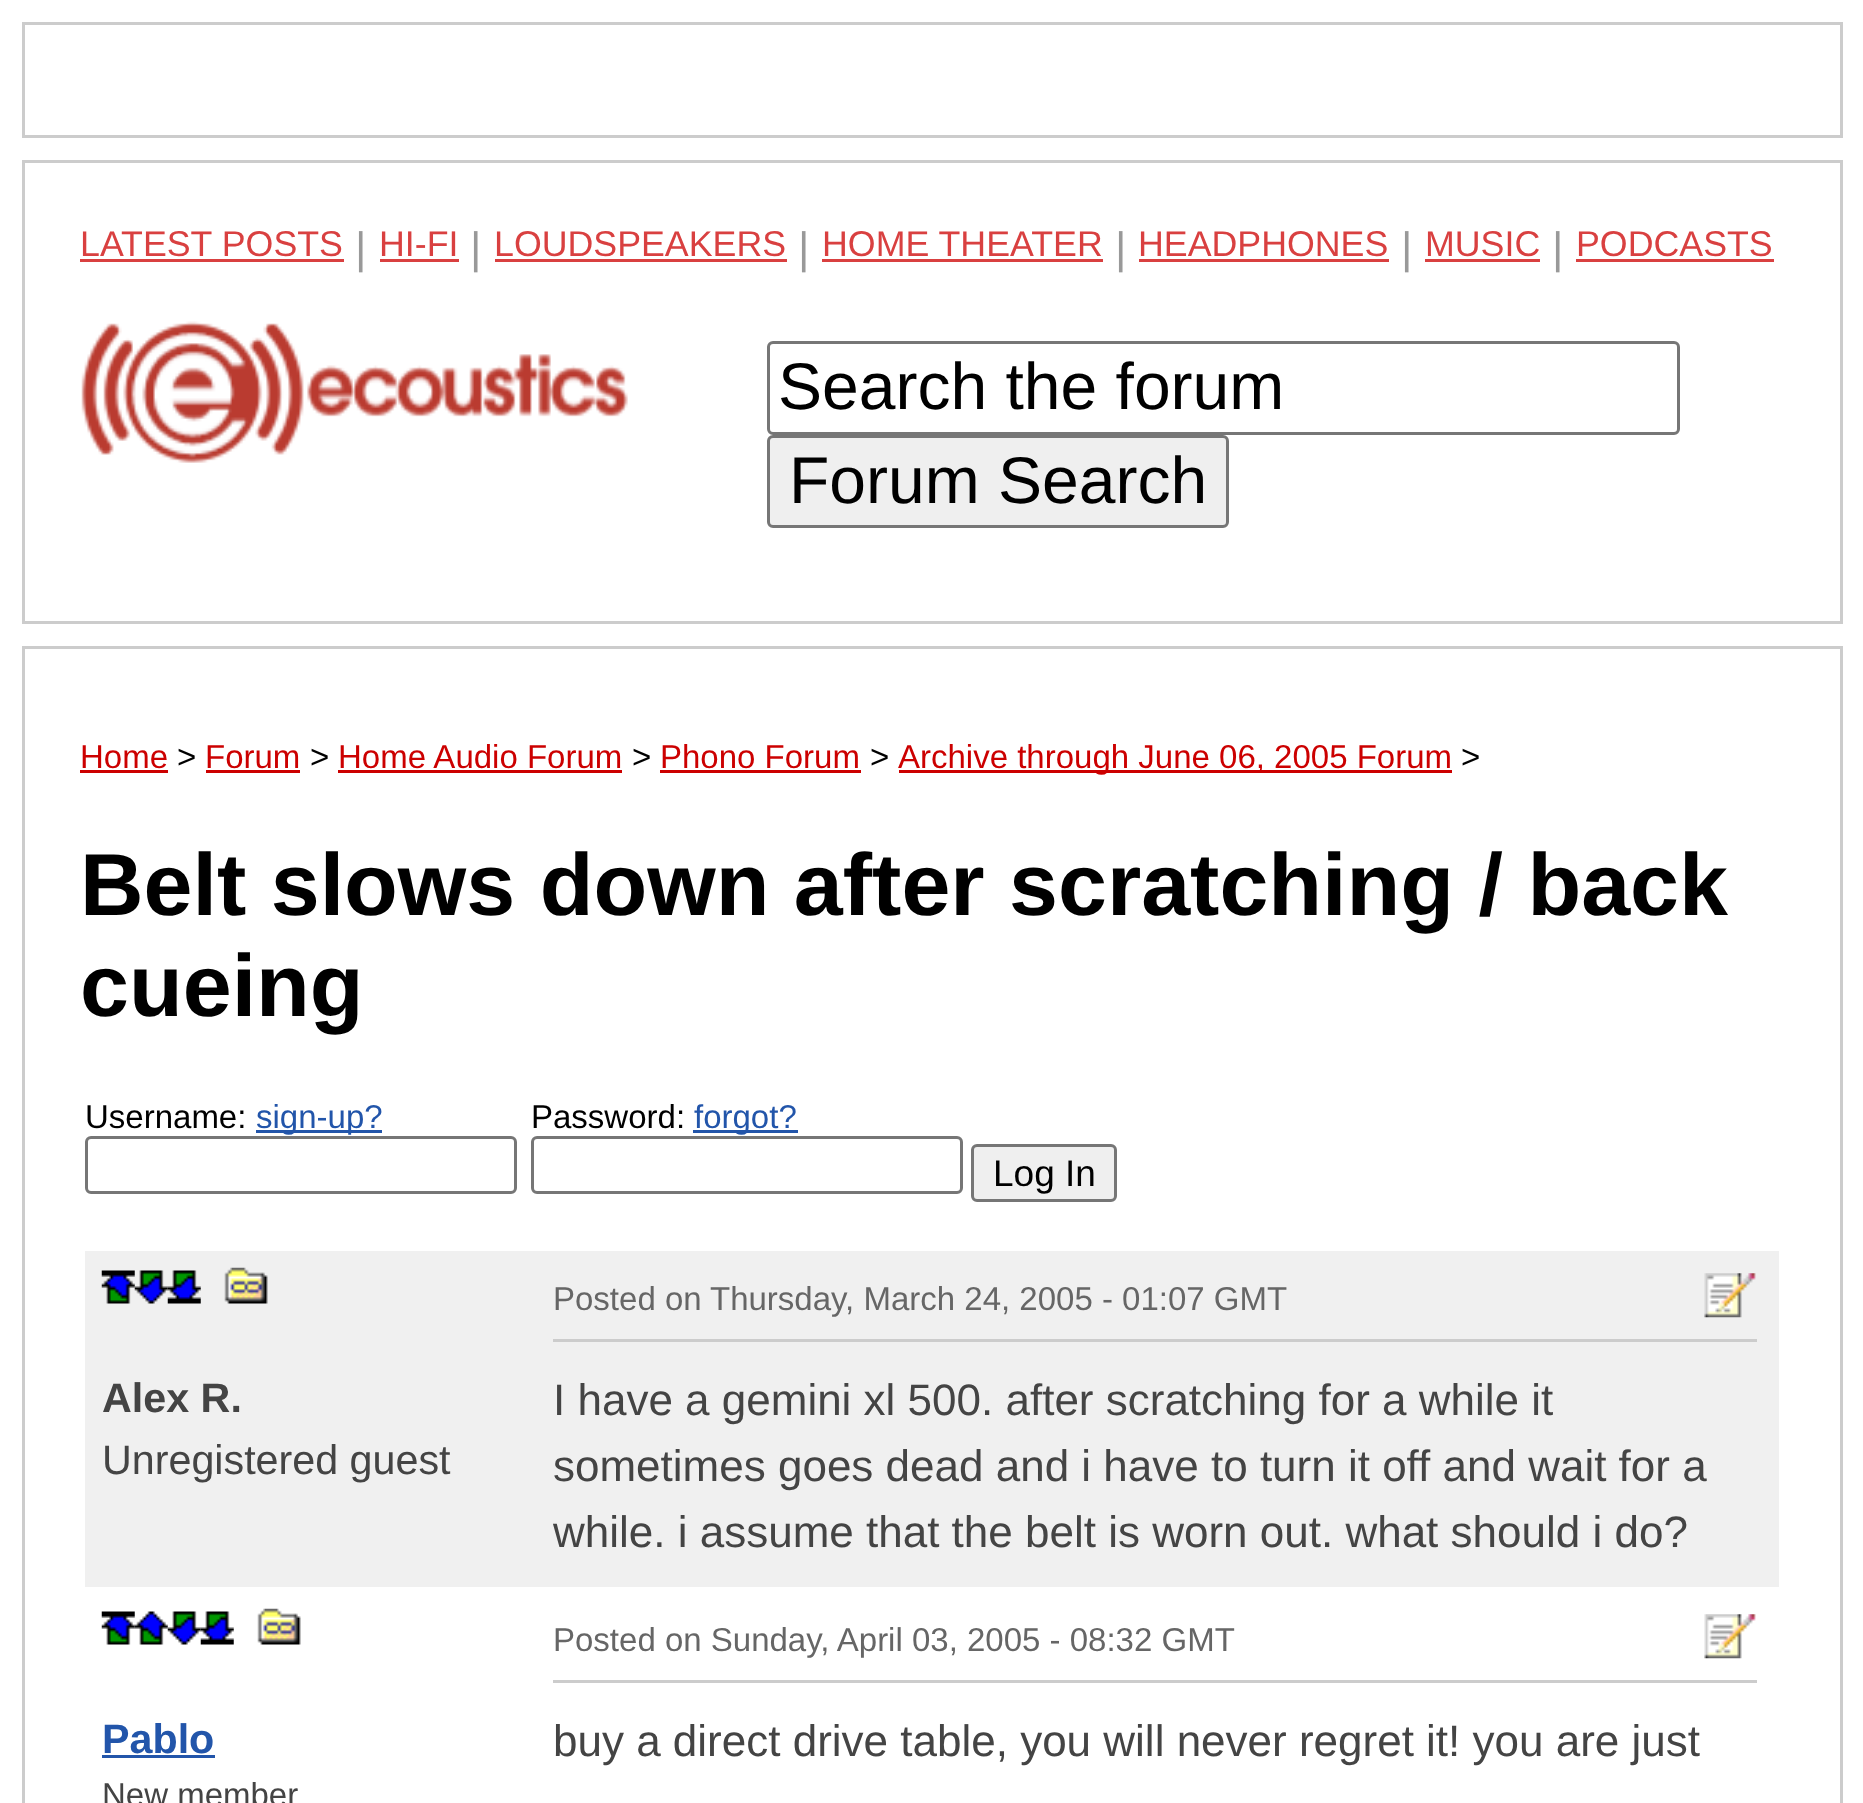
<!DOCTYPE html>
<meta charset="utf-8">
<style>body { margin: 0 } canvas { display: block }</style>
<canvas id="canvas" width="1863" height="1803"></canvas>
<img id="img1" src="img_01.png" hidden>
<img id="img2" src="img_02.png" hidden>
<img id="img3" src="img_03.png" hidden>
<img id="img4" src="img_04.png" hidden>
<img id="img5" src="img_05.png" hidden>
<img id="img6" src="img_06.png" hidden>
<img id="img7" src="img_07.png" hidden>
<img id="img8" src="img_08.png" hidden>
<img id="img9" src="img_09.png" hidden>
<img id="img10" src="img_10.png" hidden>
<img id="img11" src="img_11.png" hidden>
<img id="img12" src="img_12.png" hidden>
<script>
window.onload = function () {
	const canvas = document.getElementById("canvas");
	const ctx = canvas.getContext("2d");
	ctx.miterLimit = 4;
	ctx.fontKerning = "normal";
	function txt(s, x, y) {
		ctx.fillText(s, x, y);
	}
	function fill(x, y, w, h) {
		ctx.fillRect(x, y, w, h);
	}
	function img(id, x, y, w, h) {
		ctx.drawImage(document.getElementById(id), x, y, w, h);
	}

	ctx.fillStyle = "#FFFFFF";
	fill(0, 0, 1863, 1803);
	ctx.strokeStyle = "#CCCCCC";
	ctx.lineWidth = 3;
	ctx.strokeRect(23.5, 23.5, 1818, 113);
	ctx.strokeRect(23.5, 161.5, 1818, 461);
	ctx.fillStyle = "#D94040";
	fill(80, 259, 264, 3);
	fill(380, 259, 79, 3);
	fill(495, 259, 292, 3);
	fill(822, 259, 281, 3);
	fill(1139, 259, 250, 3);
	fill(1425, 259, 115, 3);
	fill(1576, 259, 198, 3);
	img("img1", 81, 321, 547, 142);
	ctx.beginPath();
	ctx.roundRect(768.5, 342.5, 910, 91, 4.5);
	ctx.strokeStyle = "#767676";
	ctx.stroke();
	ctx.fillStyle = "#EFEFEF";
	ctx.beginPath();
	ctx.roundRect(768.5, 436.5, 459, 90, 4.5);
	ctx.fill();
	ctx.stroke();
	ctx.strokeStyle = "#CCCCCC";
	ctx.strokeRect(23.5, 647.5, 1818, 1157);
	ctx.fillStyle = "#CC0000";
	fill(80, 770, 88, 3);
	fill(206, 770, 94, 3);
	fill(338, 770, 284, 3);
	fill(660, 770, 201, 3);
	fill(899, 770, 553, 3);
	ctx.fillStyle = "#2255AA";
	fill(256, 1130, 126, 3);
	ctx.beginPath();
	ctx.roundRect(86.5, 1137.5, 429, 55, 4.5);
	ctx.strokeStyle = "#767676";
	ctx.stroke();
	fill(693, 1130, 105, 3);
	ctx.beginPath();
	ctx.roundRect(532.5, 1137.5, 429, 55, 4.5);
	ctx.stroke();
	ctx.fillStyle = "#EFEFEF";
	ctx.beginPath();
	ctx.roundRect(972.5, 1145.5, 143, 55, 4.5);
	ctx.fill();
	ctx.stroke();
	ctx.fillStyle = "#F0F0F0";
	fill(85, 1251, 1694, 336);
	img("img2", 101, 1270, 34, 34);
	img("img3", 134, 1270, 34, 34);
	img("img4", 167, 1270, 34, 34);
	img("img5", 224, 1267, 44, 37);
	ctx.fillStyle = "#CCCCCC";
	fill(553, 1339, 1204, 3);
	img("img6", 1704, 1273, 52, 45);
	img("img7", 101, 1611, 34, 34);
	img("img8", 134, 1611, 34, 34);
	img("img9", 167, 1611, 34, 34);
	img("img10", 200, 1611, 34, 34);
	img("img11", 257, 1608, 44, 37);
	ctx.fillStyle = "#2255AA";
	fill(102, 1755, 113, 3);
	ctx.fillStyle = "#CCCCCC";
	fill(553, 1680, 1204, 3);
	img("img12", 1704, 1614, 52, 45);
	ctx.font = "35.75px Liberation Sans";
	ctx.fillStyle = "#D94040";
	txt("LATEST POSTS", 80, 256);
	ctx.font = "44px Liberation Sans";
	ctx.fillStyle = "#999999";
	txt("|", 355, 263);
	ctx.font = "35.75px Liberation Sans";
	ctx.fillStyle = "#D94040";
	txt("HI-FI", 379, 256);
	ctx.font = "44px Liberation Sans";
	ctx.fillStyle = "#999999";
	txt("|", 470, 263);
	ctx.font = "35.75px Liberation Sans";
	ctx.fillStyle = "#D94040";
	txt("LOUDSPEAKERS", 494, 256);
	ctx.font = "44px Liberation Sans";
	ctx.fillStyle = "#999999";
	txt("|", 798, 263);
	ctx.font = "35.75px Liberation Sans";
	ctx.fillStyle = "#D94040";
	txt("HOME THEATER", 822, 256);
	ctx.font = "44px Liberation Sans";
	ctx.fillStyle = "#999999";
	txt("|", 1115, 263);
	ctx.font = "35.75px Liberation Sans";
	ctx.fillStyle = "#D94040";
	txt("HEADPHONES", 1138, 256);
	ctx.font = "44px Liberation Sans";
	ctx.fillStyle = "#999999";
	txt("|", 1401, 263);
	ctx.font = "35.75px Liberation Sans";
	ctx.fillStyle = "#D94040";
	txt("MUSIC", 1425, 256);
	ctx.font = "44px Liberation Sans";
	ctx.fillStyle = "#999999";
	txt("|", 1552, 263);
	ctx.font = "35.75px Liberation Sans";
	ctx.fillStyle = "#D94040";
	txt("PODCASTS", 1576, 256);
	ctx.font = "66px Liberation Sans";
	ctx.fillStyle = "#000000";
	txt("Search the forum", 778, 409);
	txt("Forum Search", 789, 503);
	ctx.font = "33px Liberation Sans";
	ctx.fillStyle = "#CC0000";
	txt("Home", 80, 768);
	ctx.fillStyle = "#000000";
	txt(">", 177, 768);
	ctx.fillStyle = "#CC0000";
	txt("Forum", 205, 768);
	ctx.fillStyle = "#000000";
	txt(">", 310, 768);
	ctx.fillStyle = "#CC0000";
	txt("Home Audio Forum", 338, 768);
	ctx.fillStyle = "#000000";
	txt(">", 632, 768);
	ctx.fillStyle = "#CC0000";
	txt("Phono Forum", 660, 768);
	ctx.fillStyle = "#000000";
	txt(">", 870, 768);
	ctx.fillStyle = "#CC0000";
	txt("Archive through June 06, 2005 Forum", 898, 768);
	ctx.fillStyle = "#000000";
	txt(">", 1461, 768);
	ctx.font = "bold 88px Liberation Sans";
	txt("Belt slows down after scratching / back", 80, 915);
	txt("cueing", 80, 1016);
	ctx.font = "33px Liberation Sans";
	txt("Username:", 85, 1128);
	ctx.fillStyle = "#2255AA";
	txt("sign-up?", 256, 1128);
	ctx.fillStyle = "#000000";
	txt("Password:", 531, 1128);
	ctx.fillStyle = "#2255AA";
	txt("forgot?", 694, 1128);
	ctx.font = "37px Liberation Sans";
	ctx.fillStyle = "#000000";
	txt("Log In", 993, 1186);
	ctx.font = "bold 41.25px Liberation Sans";
	ctx.fillStyle = "#444444";
	txt("Alex R.", 102, 1412);
	ctx.font = "41.25px Liberation Sans";
	txt("Unregistered guest", 102, 1474);
	ctx.font = "33px Liberation Sans";
	ctx.fillStyle = "#666666";
	txt("Posted on", 553, 1310);
	txt("Thursday, March 24, 2005 - 01:07 GMT", 710, 1310);
	ctx.font = "44px Liberation Sans";
	ctx.fillStyle = "#444444";
	txt("I have a gemini xl 500. after scratching for a while it", 553, 1415);
	txt("sometimes goes dead and i have to turn it off and wait for a", 553, 1481);
	txt("while. i assume that the belt is worn out. what should i do?", 553, 1547);
	ctx.font = "bold 41.25px Liberation Sans";
	ctx.fillStyle = "#2255AA";
	txt("Pablo", 102, 1753);
	ctx.font = "33px Liberation Sans";
	ctx.fillStyle = "#444444";
	txt("New member", 102, 1806);
	ctx.fillStyle = "#666666";
	txt("Posted on Sunday, April 03, 2005 - 08:32 GMT", 553, 1651);
	ctx.font = "44px Liberation Sans";
	ctx.fillStyle = "#444444";
	txt("buy a direct drive table, you will never regret it! you are just", 553, 1756);
};
</script>
